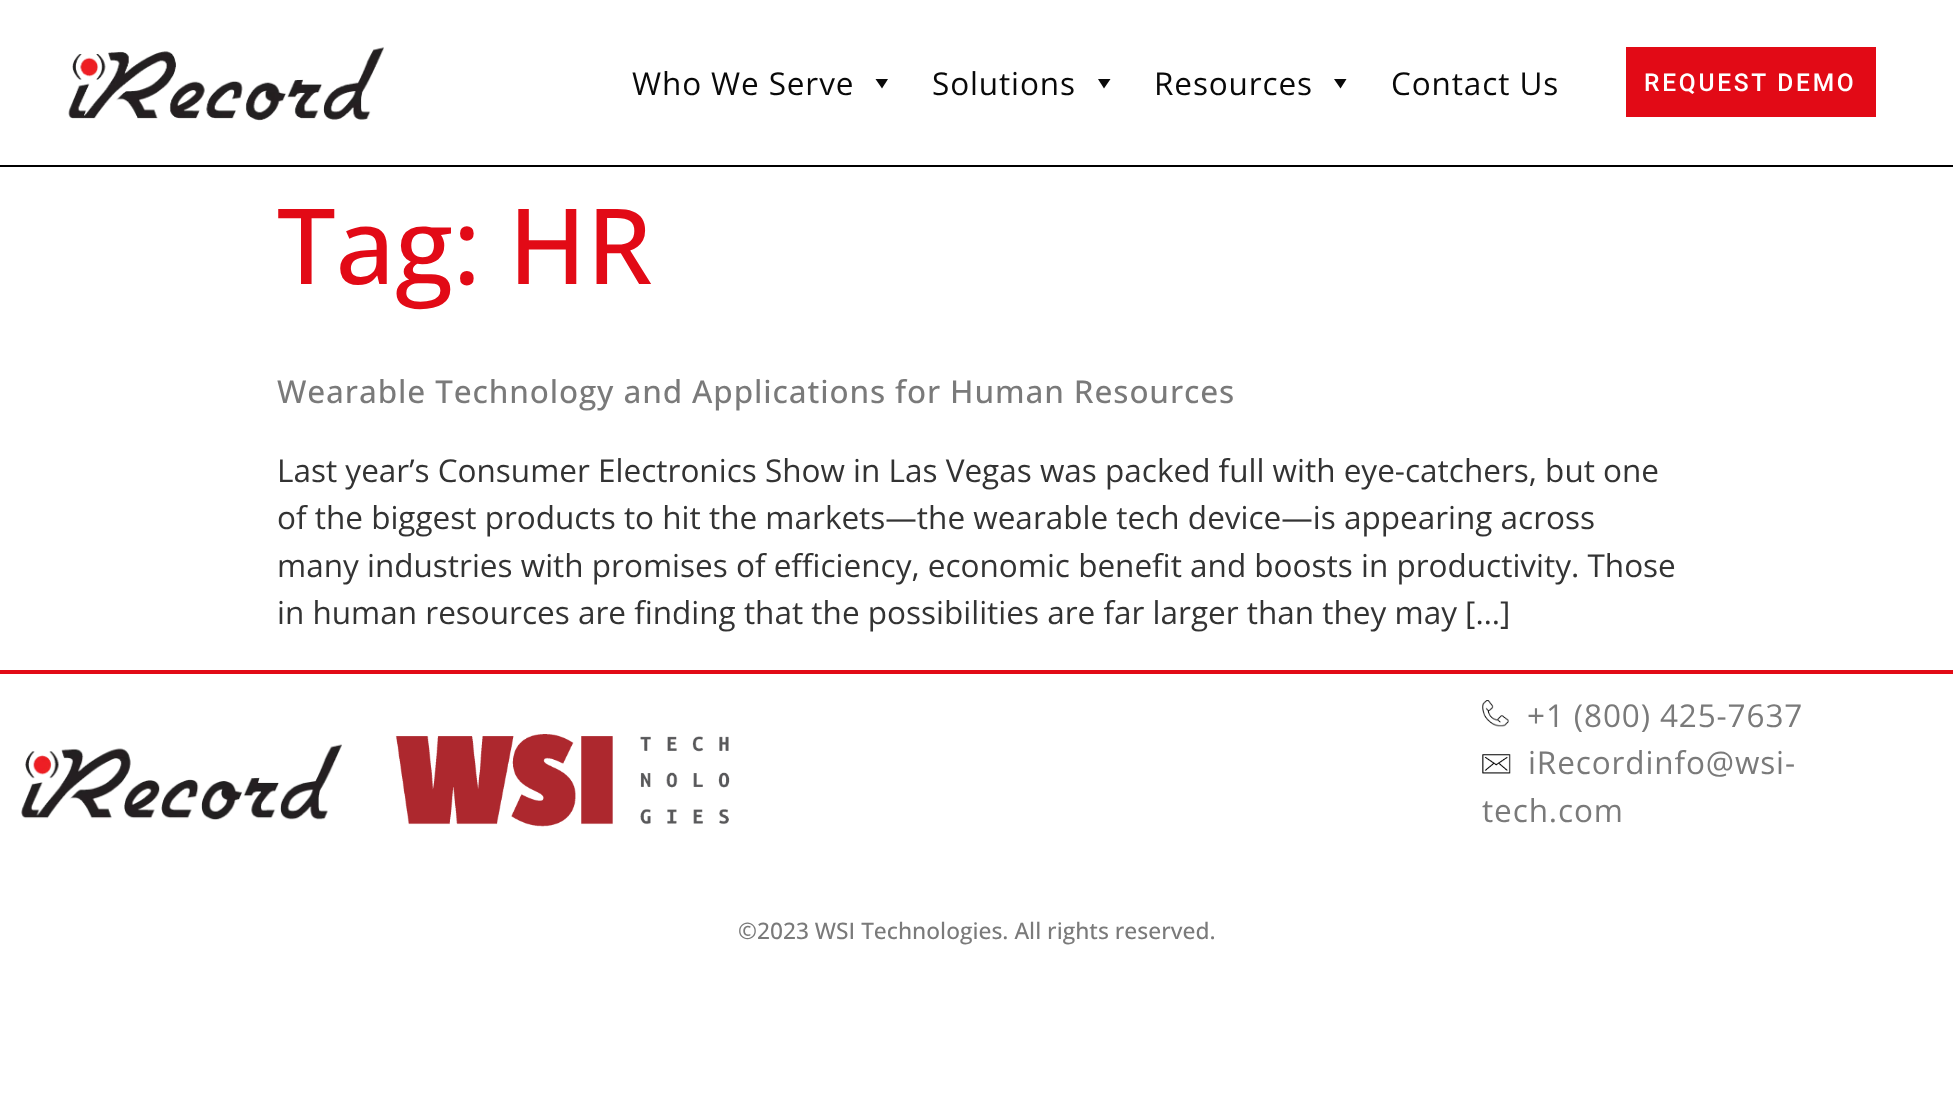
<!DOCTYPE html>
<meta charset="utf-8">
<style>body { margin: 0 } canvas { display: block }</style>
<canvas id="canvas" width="1953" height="1097"></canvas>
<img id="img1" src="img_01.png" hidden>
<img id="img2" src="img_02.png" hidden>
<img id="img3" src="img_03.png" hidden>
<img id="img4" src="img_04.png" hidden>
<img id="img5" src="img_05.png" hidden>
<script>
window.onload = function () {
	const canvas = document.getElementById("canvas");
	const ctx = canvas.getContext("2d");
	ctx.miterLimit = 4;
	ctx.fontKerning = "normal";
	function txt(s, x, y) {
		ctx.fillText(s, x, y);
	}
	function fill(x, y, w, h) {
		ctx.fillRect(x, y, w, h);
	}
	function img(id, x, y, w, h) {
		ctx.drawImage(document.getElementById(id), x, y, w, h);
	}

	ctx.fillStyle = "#FFFFFF";
	fill(0, 0, 1953, 1097);
	ctx.fillStyle = "#000000";
	fill(0, 165, 1953, 2);
	img("img1", 68, 47, 316, 74);
	ctx.fillStyle = "#090909";
	ctx.beginPath();
	ctx.moveTo(888, 79);
	ctx.lineTo(882, 88.5);
	ctx.lineTo(875.5, 79);
	ctx.closePath();
	ctx.fill();
	ctx.beginPath();
	ctx.moveTo(1110.5, 79);
	ctx.lineTo(1104, 88.5);
	ctx.lineTo(1098, 79);
	ctx.closePath();
	ctx.fill();
	ctx.beginPath();
	ctx.moveTo(1346.5, 79);
	ctx.lineTo(1340.5, 88.5);
	ctx.lineTo(1334, 79);
	ctx.closePath();
	ctx.fill();
	ctx.fillStyle = "#E20A16";
	fill(1626, 47, 250, 70);
	fill(0, 670, 1953, 4);
	img("img2", 21, 744, 321, 76);
	img("img3", 395, 734, 335, 93);
	img("img4", 1482, 700, 27, 27);
	img("img5", 1482, 754, 29, 20);
	ctx.letterSpacing = "0.88px";
	ctx.font = "31.5px Open Sans";
	ctx.fillStyle = "#090909";
	txt("Who We Serve", 632, 95);
	txt("Solutions", 932, 95);
	txt("Resources", 1154, 95);
	txt("Contact Us", 1391, 95);
	ctx.letterSpacing = "2.75px";
	ctx.font = "500 24.5px Roboto";
	ctx.fillStyle = "#FFFFFF";
	txt("REQUEST DEMO", 1644, 91);
	ctx.letterSpacing = "0px";
	ctx.font = "500 105px Open Sans";
	ctx.fillStyle = "#E20A16";
	txt("Tag: HR", 277, 284);
	ctx.letterSpacing = "0.88px";
	ctx.font = "500 31.5px Open Sans";
	ctx.fillStyle = "#7A7A7A";
	txt("Wearable Technology and Applications for Human Resources", 277, 403);
	ctx.letterSpacing = "0px";
	ctx.font = "31.5px Open Sans";
	ctx.fillStyle = "#333333";
	txt("Last year’s Consumer Electronics Show in Las Vegas was packed full with eye-catchers, but one", 277, 482);
	txt("of the biggest products to hit the markets—the wearable tech device—is appearing across", 277, 529);
	txt("many industries with promises of efficiency, economic benefit and boosts in productivity. Those", 277, 577);
	txt("in human resources are finding that the possibilities are far larger than they may […]", 277, 624);
	ctx.letterSpacing = "0.88px";
	ctx.fillStyle = "#7A7A7A";
	txt("+1 (800) 425-7637", 1527, 727);
	txt("iRecordinfo@wsi-", 1528, 774);
	txt("tech.com", 1482, 822);
	ctx.letterSpacing = "0px";
	ctx.font = "500 22.75px Open Sans";
	txt("©2023 WSI Technologies. All rights reserved.", 738, 939);
};
</script>
